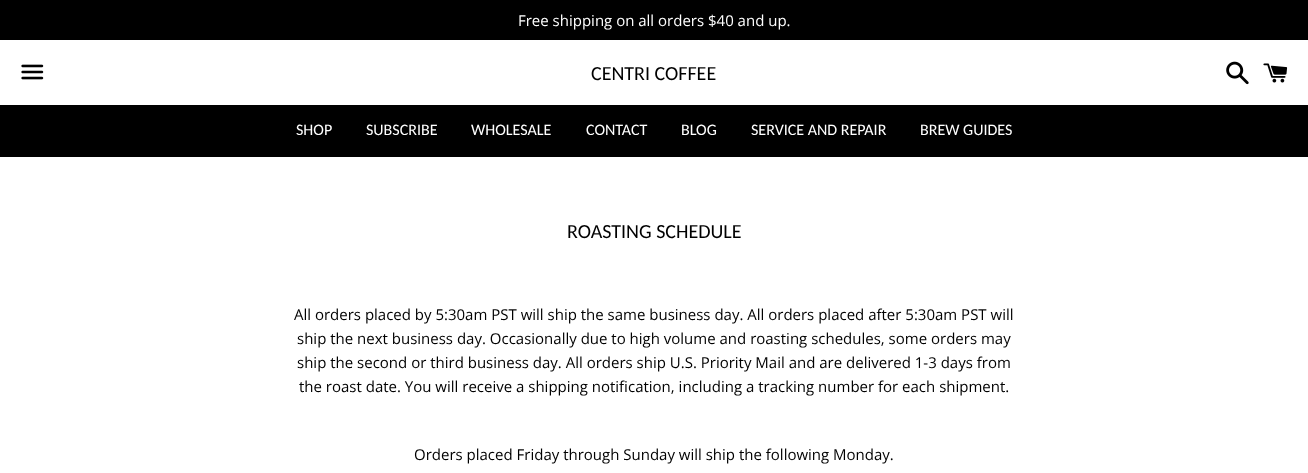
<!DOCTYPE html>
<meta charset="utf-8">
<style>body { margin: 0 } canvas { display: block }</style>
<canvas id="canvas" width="1308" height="473"></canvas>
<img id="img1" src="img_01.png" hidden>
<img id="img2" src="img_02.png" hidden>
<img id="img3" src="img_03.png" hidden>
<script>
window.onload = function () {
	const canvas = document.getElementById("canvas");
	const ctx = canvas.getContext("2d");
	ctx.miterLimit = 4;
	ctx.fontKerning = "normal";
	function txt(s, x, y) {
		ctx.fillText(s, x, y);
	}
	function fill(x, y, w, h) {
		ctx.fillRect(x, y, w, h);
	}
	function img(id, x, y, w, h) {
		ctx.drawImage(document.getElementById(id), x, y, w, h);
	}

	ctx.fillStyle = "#FFFFFF";
	fill(0, 0, 1308, 473);
	ctx.fillStyle = "#000000";
	fill(0, 0, 1308, 40);
	img("img1", 21, 64, 23, 16);
	img("img2", 1226, 61, 23, 24);
	img("img3", 1263, 63, 25, 20);
	fill(0, 105, 1308, 52);
	ctx.font = "15px Open Sans";
	ctx.fillStyle = "#FFFFFF";
	txt("Free shipping on all orders $40 and up.", 518, 26);
	ctx.font = "20px Carlito";
	ctx.fillStyle = "#000000";
	txt("CENTRI COFFEE", 591, 80);
	ctx.font = "16px Carlito";
	ctx.fillStyle = "#FFFFFF";
	txt("SHOP", 296, 135);
	txt("SUBSCRIBE", 366, 135);
	txt("WHOLESALE", 471, 135);
	txt("CONTACT", 586, 135);
	txt("BLOG", 681, 135);
	txt("SERVICE AND REPAIR", 751, 135);
	txt("BREW GUIDES", 920, 135);
	ctx.font = "20px Carlito";
	ctx.fillStyle = "#000000";
	txt("ROASTING SCHEDULE", 567, 238);
	ctx.font = "15px Open Sans";
	txt("All orders placed by 5:30am PST will ship the same business day. All orders placed after 5:30am PST will", 294, 320);
	txt("ship the next business day. Occasionally due to high volume and roasting schedules, some orders may", 297, 344);
	txt("ship the second or third business day. All orders ship U.S. Priority Mail and are delivered 1-3 days from", 297, 368);
	txt("the roast date. You will receive a shipping notification, including a tracking number for each shipment.", 299, 392);
	txt("Orders placed Friday through Sunday will ship the following Monday.", 414, 460);
};
</script>
